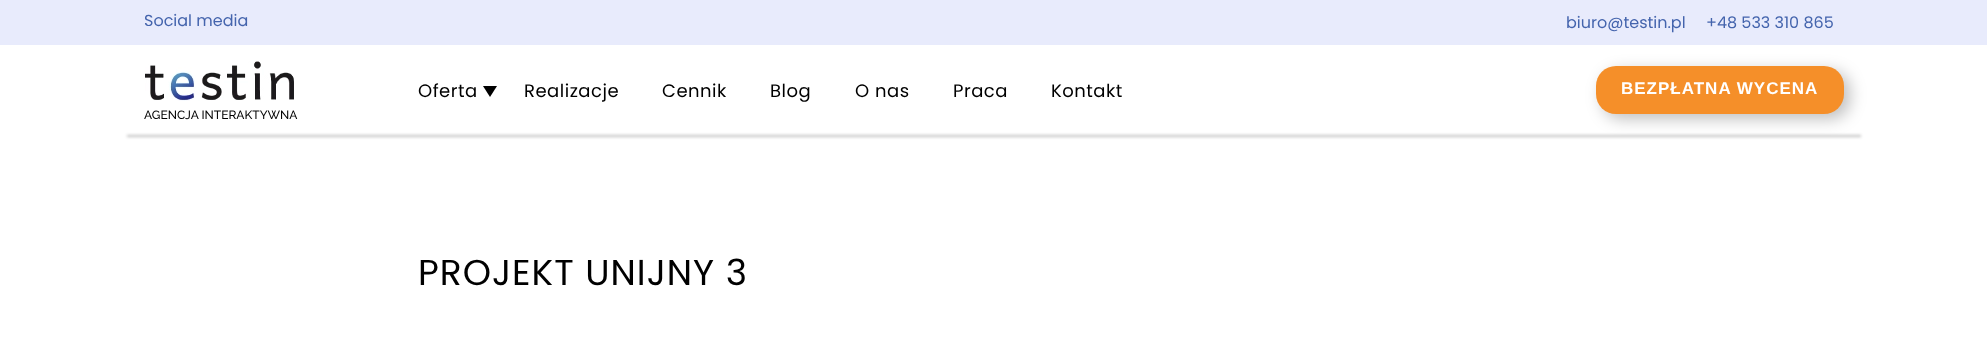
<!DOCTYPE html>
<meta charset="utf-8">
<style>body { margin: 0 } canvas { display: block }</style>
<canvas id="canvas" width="1987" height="337"></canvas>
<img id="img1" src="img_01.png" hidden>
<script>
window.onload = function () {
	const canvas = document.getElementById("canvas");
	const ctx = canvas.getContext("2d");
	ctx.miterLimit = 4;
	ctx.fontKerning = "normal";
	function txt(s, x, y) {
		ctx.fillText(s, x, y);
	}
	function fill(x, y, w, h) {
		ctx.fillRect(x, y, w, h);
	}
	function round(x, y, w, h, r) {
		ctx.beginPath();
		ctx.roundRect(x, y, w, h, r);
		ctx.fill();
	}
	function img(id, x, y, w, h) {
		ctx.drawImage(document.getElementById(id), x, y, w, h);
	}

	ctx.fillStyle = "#FFFFFF";
	fill(0, 0, 1987, 337);
	ctx.fillStyle = "#E8EBFC";
	fill(0, 0, 1987, 45);
	ctx.fillStyle = "#000000";
	ctx.beginPath();
	ctx.moveTo(483, 86);
	ctx.lineTo(497, 86);
	ctx.lineTo(490, 97);
	ctx.closePath();
	ctx.fill();
	img("img1", 145, 61, 149, 40);
	ctx.fillStyle = "rgba(0, 0, 0, 0.25)";
	ctx.filter = "blur(8px)";
	ctx.beginPath();
	ctx.roundRect(1602, 71, 248, 48, 20);
	ctx.fill();
	ctx.filter = "none";
	ctx.fillStyle = "#F58F29";
	round(1596, 66, 248, 48, 20);
	ctx.fillStyle = "rgba(0, 0, 0, 0.25)";
	ctx.filter = "blur(1.5px)";
	ctx.beginPath();
	ctx.rect(127, 135, 1734, 2);
	ctx.fill();
	ctx.filter = "none";
	ctx.font = "16px Poppins";
	ctx.fillStyle = "#4464AD";
	txt("Social media", 144, 26);
	txt("biuro@testin.pl", 1566, 28);
	txt("+48 533 310 865", 1706, 28);
	ctx.letterSpacing = "0.5px";
	ctx.font = "18px Poppins";
	ctx.fillStyle = "#000000";
	txt("Oferta", 418, 97);
	txt("Realizacje", 524, 97);
	txt("Cennik", 662, 97);
	txt("Blog", 770, 97);
	txt("O nas", 855, 97);
	txt("Praca", 953, 97);
	txt("Kontakt", 1051, 97);
	ctx.letterSpacing = "0px";
	ctx.font = "500 12px Raleway";
	txt("AGENCJA INTERAKTYWNA", 144, 119);
	ctx.letterSpacing = "1px";
	ctx.font = "bold 17px Liberation Sans";
	ctx.fillStyle = "#FFFFFF";
	txt("BEZPŁATNA WYCENA", 1621, 94);
	ctx.font = "36px Poppins";
	ctx.fillStyle = "#000000";
	txt("PROJEKT UNIJNY 3", 418, 285);
};
</script>
